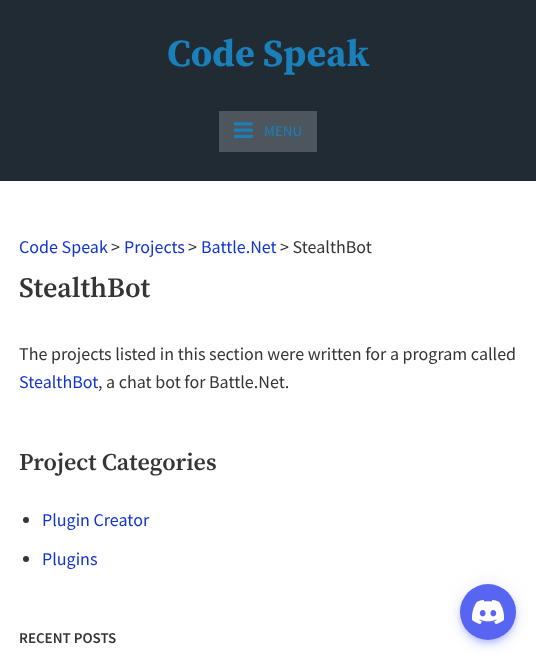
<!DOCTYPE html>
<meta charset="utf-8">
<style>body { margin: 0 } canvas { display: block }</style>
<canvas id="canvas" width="536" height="660"></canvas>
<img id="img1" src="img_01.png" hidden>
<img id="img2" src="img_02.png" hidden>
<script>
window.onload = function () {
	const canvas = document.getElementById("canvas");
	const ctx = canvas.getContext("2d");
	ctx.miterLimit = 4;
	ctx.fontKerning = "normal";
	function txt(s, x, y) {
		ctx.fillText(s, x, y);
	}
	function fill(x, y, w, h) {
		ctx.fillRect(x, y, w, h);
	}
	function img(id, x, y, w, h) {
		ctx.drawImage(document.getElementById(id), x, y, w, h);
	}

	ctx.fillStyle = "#FFFFFF";
	fill(0, 0, 536, 660);
	ctx.fillStyle = "#202B34";
	fill(0, 0, 536, 181);
	ctx.fillStyle = "#4D555D";
	fill(219, 111, 98, 41);
	img("img1", 234, 122, 19, 16);
	ctx.fillStyle = "#353535";
	ctx.beginPath();
	ctx.arc(26, 520, 3, 0, Math.PI * 2);
	ctx.fill();
	ctx.beginPath();
	ctx.arc(26, 559, 3, 0, Math.PI * 2);
	ctx.fill();
	ctx.fillStyle = "rgba(88, 101, 242, 0.12)";
	ctx.filter = "blur(9px)";
	ctx.beginPath();
	ctx.roundRect(460, 585, 56, 56, 28);
	ctx.fill();
	ctx.filter = "none";
	ctx.fillStyle = "rgba(88, 101, 242, 0.14)";
	ctx.filter = "blur(5px)";
	ctx.beginPath();
	ctx.roundRect(460, 590, 56, 56, 28);
	ctx.fill();
	ctx.filter = "none";
	ctx.fillStyle = "rgba(88, 101, 242, 0.3)";
	ctx.filter = "blur(2.5px)";
	ctx.beginPath();
	ctx.roundRect(461, 588, 54, 54, 27);
	ctx.fill();
	ctx.filter = "none";
	ctx.fillStyle = "#5865F2";
	ctx.beginPath();
	ctx.arc(488, 612, 28, 0, Math.PI * 2);
	ctx.fill();
	img("img2", 472, 599, 32, 26);
	ctx.font = "bold 38px Source Serif Pro";
	ctx.fillStyle = "#1B80BA";
	txt("Code Speak", 167, 66);
	ctx.font = "15px Source Sans Pro";
	txt("MENU", 264, 136);
	ctx.font = "18px Source Sans Pro";
	ctx.fillStyle = "#1235D1";
	txt("Code Speak", 19, 253);
	ctx.fillStyle = "#353535";
	txt(">", 111, 253);
	ctx.fillStyle = "#1235D1";
	txt("Projects", 124, 253);
	ctx.fillStyle = "#353535";
	txt(">", 188, 253);
	ctx.fillStyle = "#1235D1";
	txt("Battle.Net", 201, 253);
	ctx.fillStyle = "#353535";
	txt("> StealthBot", 280, 253);
	ctx.font = "600 28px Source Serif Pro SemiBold";
	txt("StealthBot", 19, 297);
	ctx.font = "18px Source Sans Pro";
	txt("The projects listed in this section were written for a program called", 19, 360);
	ctx.fillStyle = "#1235D1";
	txt("StealthBot", 19, 388);
	ctx.fillStyle = "#353535";
	txt(", a chat bot for Battle.Net.", 98, 388);
	ctx.font = "600 24px Source Serif Pro SemiBold";
	txt("Project Categories", 19, 470);
	ctx.font = "18px Source Sans Pro";
	ctx.fillStyle = "#1235D1";
	txt("Plugin Creator", 42, 526);
	txt("Plugins", 42, 565);
	ctx.font = "600 15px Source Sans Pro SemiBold";
	ctx.fillStyle = "#353535";
	txt("RECENT POSTS", 19, 643);
};
</script>
